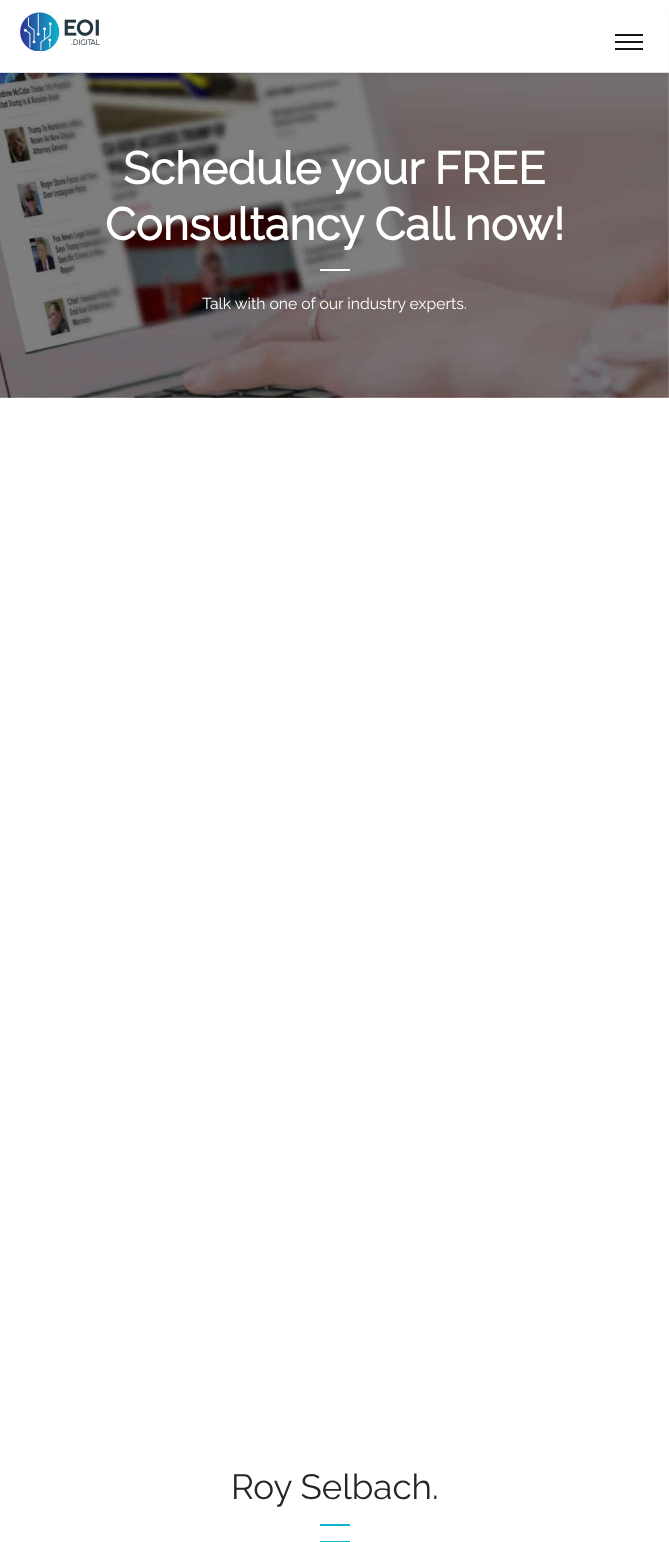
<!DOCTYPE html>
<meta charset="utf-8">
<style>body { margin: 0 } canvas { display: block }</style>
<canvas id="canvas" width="669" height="1542"></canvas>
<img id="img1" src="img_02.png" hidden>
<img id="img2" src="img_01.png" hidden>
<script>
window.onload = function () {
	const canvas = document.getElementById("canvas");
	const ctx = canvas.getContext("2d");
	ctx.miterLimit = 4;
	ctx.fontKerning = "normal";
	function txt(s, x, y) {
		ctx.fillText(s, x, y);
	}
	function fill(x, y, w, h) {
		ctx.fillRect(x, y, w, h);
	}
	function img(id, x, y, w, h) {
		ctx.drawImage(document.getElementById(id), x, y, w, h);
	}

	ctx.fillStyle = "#FFFFFF";
	fill(0, 0, 669, 1542);
	img("img1", 0, 73, 669, 325);
	ctx.fillStyle = "rgba(0, 0, 0, 0.1)";
	ctx.filter = "blur(2.5px)";
	ctx.beginPath();
	ctx.rect(4, 9, 661, 65);
	ctx.fill();
	ctx.filter = "none";
	ctx.fillStyle = "#FFFFFF";
	fill(1, 6, 667, 66);
	ctx.fillStyle = "#DDDDDD";
	fill(0, 72, 669, 1);
	img("img2", 20, 12, 80, 39);
	ctx.fillStyle = "#151515";
	fill(615, 41, 28, 2);
	fill(615, 34, 28, 2);
	fill(615, 48, 28, 2);
	ctx.fillStyle = "#FFFFFF";
	fill(320, 269, 30, 2);
	ctx.fillStyle = "#0CB4CE";
	fill(320, 1524, 30, 2);
	fill(320, 1541, 30, 1);
	ctx.font = "bold 45px Raleway";
	ctx.fillStyle = "#FFFFFF";
	txt("Schedule your FREE", 123, 184);
	txt("Consultancy Call now!", 105, 240);
	ctx.font = "15.75px Raleway";
	txt("Talk with one of our industry experts.", 202, 309);
	ctx.font = "35px Raleway";
	ctx.fillStyle = "#252525";
	txt("Roy Selbach.", 231, 1499);
};
</script>
